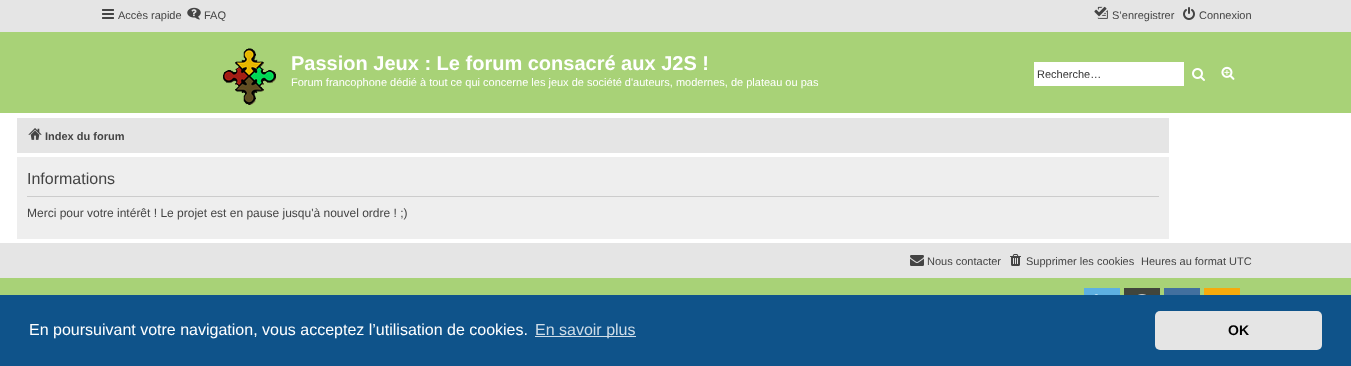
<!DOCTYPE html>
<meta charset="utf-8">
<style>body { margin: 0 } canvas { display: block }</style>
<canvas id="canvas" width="1351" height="366"></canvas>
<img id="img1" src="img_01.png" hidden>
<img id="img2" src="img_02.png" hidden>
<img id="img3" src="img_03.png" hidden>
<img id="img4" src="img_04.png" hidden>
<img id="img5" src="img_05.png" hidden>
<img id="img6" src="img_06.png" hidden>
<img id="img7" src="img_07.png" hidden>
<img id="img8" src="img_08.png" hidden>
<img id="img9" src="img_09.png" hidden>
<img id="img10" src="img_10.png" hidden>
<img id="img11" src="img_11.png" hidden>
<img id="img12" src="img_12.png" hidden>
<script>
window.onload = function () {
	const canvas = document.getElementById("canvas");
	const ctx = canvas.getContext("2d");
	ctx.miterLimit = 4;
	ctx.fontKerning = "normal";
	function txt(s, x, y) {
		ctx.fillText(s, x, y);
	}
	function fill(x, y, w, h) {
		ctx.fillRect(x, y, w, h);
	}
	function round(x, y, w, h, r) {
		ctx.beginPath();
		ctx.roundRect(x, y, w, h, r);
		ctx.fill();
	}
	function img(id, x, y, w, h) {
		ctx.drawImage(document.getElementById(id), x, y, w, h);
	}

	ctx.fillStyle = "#FFFFFF";
	fill(0, 0, 1351, 366);
	ctx.fillStyle = "#E5E5E5";
	fill(0, 0, 1351, 32);
	img("img1", 102, 9, 12, 10);
	img("img2", 187, 7, 14, 13);
	img("img3", 1094, 6, 14, 13);
	img("img4", 1183, 7, 12, 13);
	ctx.fillStyle = "#A8D277";
	fill(0, 32, 1351, 81);
	img("img5", 223, 48, 53, 57);
	ctx.fillStyle = "#FFFFFF";
	fill(1034, 62, 150, 24);
	img("img6", 1192, 68, 13, 13);
	img("img7", 1221, 66, 14, 14);
	ctx.fillStyle = "#E5E5E5";
	fill(17, 118, 1152, 35);
	img("img8", 28, 128, 14, 12);
	ctx.fillStyle = "#EEEEEE";
	fill(17, 157, 1152, 82);
	ctx.fillStyle = "#CCCCCC";
	fill(27, 196, 1132, 1);
	ctx.fillStyle = "#E5E5E5";
	fill(0, 243, 1351, 35);
	img("img9", 910, 255, 14, 11);
	img("img10", 1010, 254, 11, 12);
	ctx.fillStyle = "#A8D277";
	fill(0, 278, 1351, 17);
	ctx.fillStyle = "#5DB0E2";
	fill(1084, 288, 36, 7);
	img("img11", 1094, 294, 4, 1);
	ctx.fillStyle = "#41453C";
	fill(1124, 288, 36, 7);
	img("img12", 1138, 294, 8, 1);
	ctx.fillStyle = "#42709F";
	fill(1164, 288, 36, 7);
	ctx.fillStyle = "#F6AA0C";
	fill(1204, 288, 36, 7);
	ctx.fillStyle = "#0F538A";
	fill(0, 295, 1351, 71);
	ctx.fillStyle = "#CFDDE8";
	fill(535, 336, 101, 1);
	ctx.fillStyle = "#E5E5E5";
	round(1155, 311, 167, 39, 5);
	ctx.font = "11px Liberation Sans";
	ctx.fillStyle = "#444444";
	txt("Accès rapide", 118, 19);
	txt("FAQ", 204, 19);
	txt("S’enregistrer", 1112, 19);
	txt("Connexion", 1199, 19);
	ctx.font = "bold 20px Liberation Sans";
	ctx.fillStyle = "#FFFFFF";
	txt("Passion Jeux : Le forum consacré aux J2S !", 291, 70);
	ctx.font = "11px Liberation Sans";
	txt("Forum francophone dédié à tout ce qui concerne les jeux de société d'auteurs, modernes, de plateau ou pas", 291, 86);
	ctx.fillStyle = "#333333";
	txt("Recherche…", 1037, 78);
	ctx.font = "bold 11px Liberation Sans";
	ctx.fillStyle = "#444444";
	txt("Index du forum", 45, 140);
	ctx.font = "16px Liberation Sans";
	txt("Informations", 27, 184);
	ctx.font = "12px Liberation Sans";
	txt("Merci pour votre intérêt ! Le projet est en pause jusqu'à nouvel ordre ! ;)", 27, 217);
	ctx.font = "11px Liberation Sans";
	txt("Nous contacter", 927, 265);
	txt("Supprimer les cookies", 1026, 265);
	txt("Heures au format UTC", 1141, 265);
	ctx.font = "16px Liberation Sans";
	ctx.fillStyle = "#FFFFFF";
	txt("En poursuivant votre navigation, vous acceptez l’utilisation de cookies.", 29, 335);
	ctx.fillStyle = "#CFDDE8";
	txt("En savoir plus", 535, 335);
	ctx.font = "bold 14px Liberation Sans";
	ctx.fillStyle = "#000000";
	txt("OK", 1228, 335);
};
</script>
